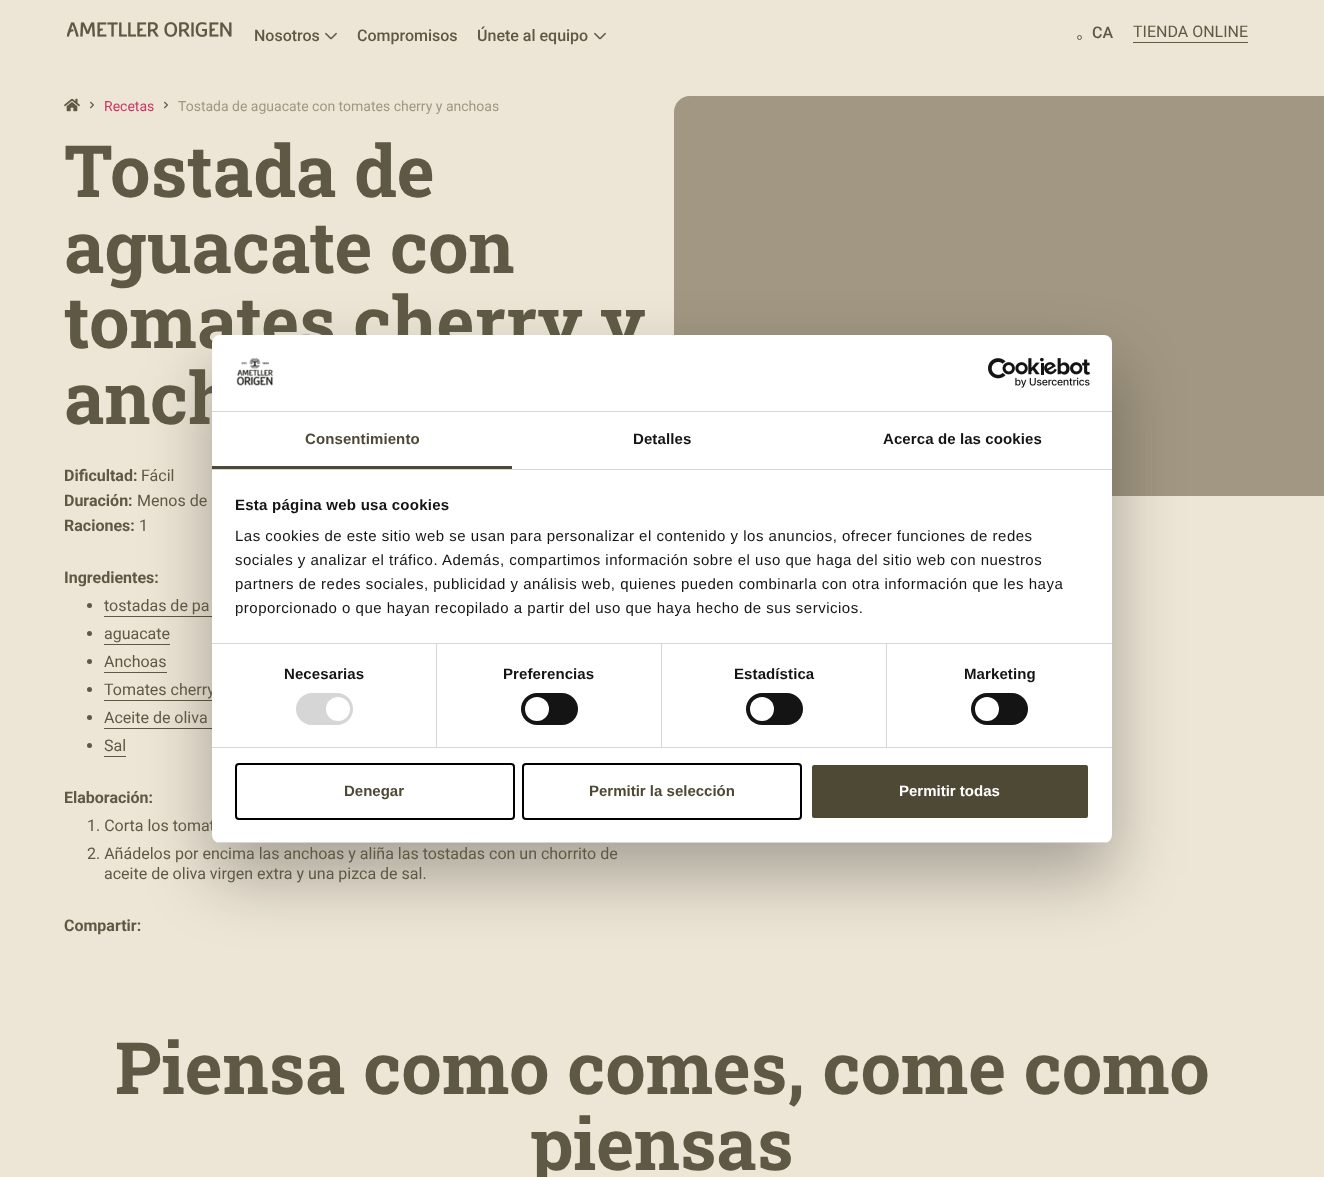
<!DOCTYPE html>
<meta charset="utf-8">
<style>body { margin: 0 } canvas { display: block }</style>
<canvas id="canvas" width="1324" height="1177"></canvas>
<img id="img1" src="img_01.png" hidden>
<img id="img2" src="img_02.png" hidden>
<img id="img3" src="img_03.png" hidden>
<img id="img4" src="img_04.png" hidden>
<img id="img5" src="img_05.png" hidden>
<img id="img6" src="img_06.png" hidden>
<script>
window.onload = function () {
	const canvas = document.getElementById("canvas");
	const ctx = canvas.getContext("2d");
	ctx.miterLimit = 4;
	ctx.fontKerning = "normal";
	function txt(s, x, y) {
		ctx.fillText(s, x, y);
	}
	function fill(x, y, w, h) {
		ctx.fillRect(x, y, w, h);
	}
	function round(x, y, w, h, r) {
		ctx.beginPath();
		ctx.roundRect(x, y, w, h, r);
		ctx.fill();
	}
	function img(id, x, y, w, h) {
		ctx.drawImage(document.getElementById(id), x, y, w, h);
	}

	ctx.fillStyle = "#EDE6D6";
	fill(0, 0, 1324, 1177);
	img("img1", 67, 22, 165, 15);
	img("img2", 325, 32, 12, 8);
	img("img2", 594, 32, 12, 8);
	ctx.beginPath();
	ctx.arc(1079.5, 37.5, 2, 0, Math.PI * 2);
	ctx.strokeStyle = "#5E5944";
	ctx.stroke();
	ctx.fillStyle = "#5E5944";
	fill(1133, 42, 115, 1);
	img("img3", 64, 98, 16, 14);
	img("img4", 90, 101, 4, 8);
	img("img4", 164, 101, 4, 8);
	ctx.beginPath();
	ctx.arc(89.5, 605.5, 2.5, 0, Math.PI * 2);
	ctx.fill();
	fill(104, 616, 114, 1);
	ctx.beginPath();
	ctx.arc(89.5, 633.5, 2.5, 0, Math.PI * 2);
	ctx.fill();
	fill(104, 644, 66, 1);
	ctx.beginPath();
	ctx.arc(89.5, 661.5, 2.5, 0, Math.PI * 2);
	ctx.fill();
	fill(104, 672, 63, 1);
	ctx.beginPath();
	ctx.arc(89.5, 689.5, 2.5, 0, Math.PI * 2);
	ctx.fill();
	fill(104, 700, 111, 1);
	ctx.beginPath();
	ctx.arc(89.5, 717.5, 2.5, 0, Math.PI * 2);
	ctx.fill();
	fill(104, 728, 108, 1);
	ctx.beginPath();
	ctx.arc(89.5, 745.5, 2.5, 0, Math.PI * 2);
	ctx.fill();
	fill(104, 756, 22, 1);
	ctx.fillStyle = "#A19782";
	ctx.beginPath();
	ctx.moveTo(690, 96);
	ctx.lineTo(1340, 96);
	ctx.lineTo(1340, 496);
	ctx.lineTo(690, 496);
	ctx.bezierCurveTo(681, 496, 674, 489, 674, 480);
	ctx.lineTo(674, 112);
	ctx.bezierCurveTo(674, 103, 681, 96, 690, 96);
	ctx.closePath();
	ctx.fill();
	ctx.fillStyle = "rgba(0, 0, 0, 0.3)";
	ctx.filter = "blur(34px)";
	ctx.beginPath();
	ctx.roundRect(212, 367, 900, 508, 8);
	ctx.fill();
	ctx.filter = "none";
	ctx.font = "500 16px Roboto";
	ctx.fillStyle = "#5E5944";
	txt("Nosotros", 254, 41);
	txt("Compromisos", 357, 41);
	txt("Únete al equipo", 477, 41);
	txt("CA", 1092, 38);
	ctx.font = "16px Roboto";
	txt("TIENDA ONLINE", 1133, 37);
	ctx.font = "14px Roboto";
	ctx.fillStyle = "#CC3366";
	txt("Recetas", 104, 111);
	ctx.fillStyle = "#A19782";
	txt("Tostada de aguacate con tomates cherry y anchoas", 178, 111);
	ctx.font = "bold 72px Roboto Slab";
	ctx.fillStyle = "#5E5944";
	txt("Tostada de", 64, 197);
	txt("aguacate con", 64, 273);
	txt("tomates cherry y", 64, 348);
	txt("anch", 64, 424);
	ctx.font = "bold 16px Roboto";
	txt("Dificultad:", 64, 481);
	ctx.font = "16px Roboto";
	txt("Fácil", 141, 481);
	ctx.font = "bold 16px Roboto";
	txt("Duración:", 64, 506);
	ctx.font = "16px Roboto";
	txt("Menos de", 137, 506);
	ctx.font = "bold 16px Roboto";
	txt("Raciones:", 64, 531);
	ctx.font = "16px Roboto";
	txt("1", 139, 531);
	ctx.font = "bold 16px Roboto";
	txt("Ingredientes:", 64, 583);
	ctx.font = "16px Roboto";
	txt("tostadas de pa", 104, 611);
	txt("aguacate", 104, 639);
	txt("Anchoas", 104, 667);
	txt("Tomates cherry", 104, 695);
	txt("Aceite de oliva", 104, 723);
	txt("Sal", 104, 751);
	ctx.font = "bold 16px Roboto";
	txt("Elaboración:", 64, 803);
	ctx.font = "16px Roboto";
	txt("1. Corta los tomat", 87, 831);
	txt("2. Añádelos por encima las anchoas y aliña las tostadas con un chorrito de", 87, 859);
	txt("aceite de oliva virgen extra y una pizca de sal.", 104, 879);
	ctx.font = "bold 16px Roboto";
	txt("Compartir:", 64, 931);
	ctx.fillStyle = "#FFFFFF";
	round(212, 335, 900, 508, 8);
	ctx.fillStyle = "#D6D6D6";
	fill(212, 411, 900, 1);
	img("img5", 236, 358, 38, 28);
	img("img6", 988, 358, 102, 30);
	fill(212, 469, 900, 1);
	ctx.fillStyle = "#4E4934";
	fill(212, 466, 300, 3);
	ctx.letterSpacing = "0.1px";
	ctx.font = "bold 15px Liberation Sans";
	txt("Consentimiento", 305, 444);
	ctx.fillStyle = "#141414";
	txt("Detalles", 633, 444);
	txt("Acerca de las cookies", 883, 444);
	ctx.fillStyle = "#D6D6D6";
	fill(212, 643, 900, 1);
	ctx.letterSpacing = "0.25px";
	ctx.fillStyle = "#141414";
	txt("Esta página web usa cookies", 235, 510);
	ctx.letterSpacing = "0.5px";
	ctx.font = "15px Liberation Sans";
	txt("Las cookies de este sitio web se usan para personalizar el contenido y los anuncios, ofrecer funciones de redes", 235, 541);
	txt("sociales y analizar el tráfico. Además, compartimos información sobre el uso que haga del sitio web con nuestros", 235, 565);
	txt("partners de redes sociales, publicidad y análisis web, quienes pueden combinarla con otra información que les haya", 235, 589);
	txt("proporcionado o que hayan recopilado a partir del uso que haya hecho de sus servicios.", 235, 613);
	ctx.fillStyle = "#D6D6D6";
	fill(212, 747, 900, 1);
	fill(436, 644, 1, 103);
	ctx.letterSpacing = "0.1px";
	ctx.font = "bold 15px Liberation Sans";
	ctx.fillStyle = "#141414";
	txt("Necesarias", 284, 679);
	ctx.fillStyle = "#D6D6D6";
	round(296, 693, 57, 32, 16);
	ctx.fillStyle = "#FFFFFF";
	ctx.beginPath();
	ctx.arc(338, 709, 12, 0, Math.PI * 2);
	ctx.fill();
	ctx.fillStyle = "#D6D6D6";
	fill(661, 644, 1, 103);
	ctx.fillStyle = "#141414";
	txt("Preferencias", 503, 679);
	round(521, 693, 57, 32, 16);
	ctx.fillStyle = "#FFFFFF";
	ctx.beginPath();
	ctx.arc(537, 709, 12, 0, Math.PI * 2);
	ctx.fill();
	ctx.fillStyle = "#D6D6D6";
	fill(886, 644, 1, 103);
	ctx.fillStyle = "#141414";
	txt("Estadística", 734, 679);
	round(746, 693, 57, 32, 16);
	ctx.fillStyle = "#FFFFFF";
	ctx.beginPath();
	ctx.arc(762, 709, 12, 0, Math.PI * 2);
	ctx.fill();
	ctx.fillStyle = "#141414";
	txt("Marketing", 964, 679);
	round(971, 693, 57, 32, 16);
	ctx.fillStyle = "#FFFFFF";
	ctx.beginPath();
	ctx.arc(987, 709, 12, 0, Math.PI * 2);
	ctx.fill();
	ctx.save();
	ctx.beginPath();
	ctx.roundRect(212, 335, 900, 508, 8);
	ctx.clip();
	ctx.fillStyle = "#D6D6D6";
	fill(212, 842, 900, 1);
	ctx.restore();
	ctx.beginPath();
	ctx.roundRect(236, 764, 278, 55, 3);
	ctx.strokeStyle = "#000000";
	ctx.lineWidth = 2;
	ctx.stroke();
	ctx.letterSpacing = "0px";
	ctx.fillStyle = "#4E4934";
	txt("Denegar", 344, 796);
	ctx.beginPath();
	ctx.roundRect(523, 764, 278, 55, 3);
	ctx.stroke();
	txt("Permitir la selección", 589, 796);
	ctx.beginPath();
	ctx.roundRect(811, 764, 278, 55, 3);
	ctx.fill();
	ctx.strokeStyle = "#FFFFFF";
	ctx.stroke();
	ctx.fillStyle = "#FFFFFF";
	txt("Permitir todas", 899, 796);
	ctx.font = "bold 72px Roboto Slab";
	ctx.fillStyle = "#5E5944";
	txt("Piensa como comes, come como", 115, 1094);
	txt("piensas", 530, 1170);
};
</script>
